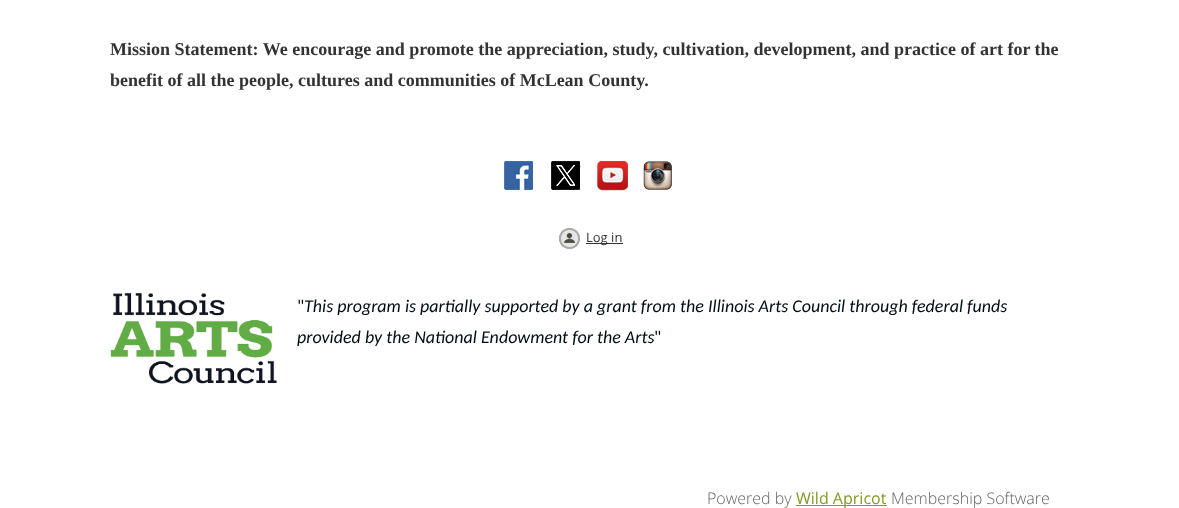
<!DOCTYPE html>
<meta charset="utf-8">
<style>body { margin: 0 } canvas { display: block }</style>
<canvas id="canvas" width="1179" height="508"></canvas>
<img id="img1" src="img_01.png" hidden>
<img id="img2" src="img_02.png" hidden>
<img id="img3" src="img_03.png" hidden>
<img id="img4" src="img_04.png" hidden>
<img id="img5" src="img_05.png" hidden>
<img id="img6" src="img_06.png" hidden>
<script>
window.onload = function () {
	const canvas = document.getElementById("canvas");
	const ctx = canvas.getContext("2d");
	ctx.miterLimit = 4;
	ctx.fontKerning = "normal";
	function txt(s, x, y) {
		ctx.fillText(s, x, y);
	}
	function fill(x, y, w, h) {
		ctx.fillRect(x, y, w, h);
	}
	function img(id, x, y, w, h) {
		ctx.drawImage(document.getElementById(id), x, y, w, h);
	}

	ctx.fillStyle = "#FFFFFF";
	fill(0, 0, 1179, 508);
	img("img1", 504, 161, 29, 29);
	img("img2", 551, 161, 30, 29);
	img("img3", 597, 161, 31, 30);
	img("img4", 643, 161, 29, 29);
	img("img5", 559, 228, 21, 21);
	ctx.fillStyle = "#333333";
	fill(586, 243, 37, 1);
	img("img6", 110, 292, 167, 92);
	ctx.fillStyle = "#839924";
	fill(796, 505, 91, 1);
	ctx.font = "bold 18px Liberation Serif";
	ctx.fillStyle = "#333333";
	txt("Mission Statement: We encourage and promote the appreciation, study, cultivation, development, and practice of art for the", 110, 55);
	txt("benefit of all the people, cultures and communities of McLean County.", 110, 86);
	ctx.font = "13px Open Sans";
	txt("Log in", 586, 242);
	ctx.font = "18px Carlito";
	ctx.fillStyle = "#000E14";
	txt("\"", 297, 312);
	ctx.font = "italic 18px Carlito";
	txt("This program is partially supported by a grant from the Illinois Arts Council through federal funds", 304, 312);
	txt("provided by the National Endowment for the Arts", 297, 343);
	ctx.font = "18px Carlito";
	txt("\"", 654, 343);
	ctx.font = "300 16px Open Sans";
	ctx.fillStyle = "#646464";
	txt("Powered by", 707, 504);
	ctx.font = "16px Open Sans";
	ctx.fillStyle = "#839924";
	txt("Wild Apricot", 796, 504);
	ctx.font = "300 16px Open Sans";
	ctx.fillStyle = "#646464";
	txt("Membership Software", 891, 504);
};
</script>
